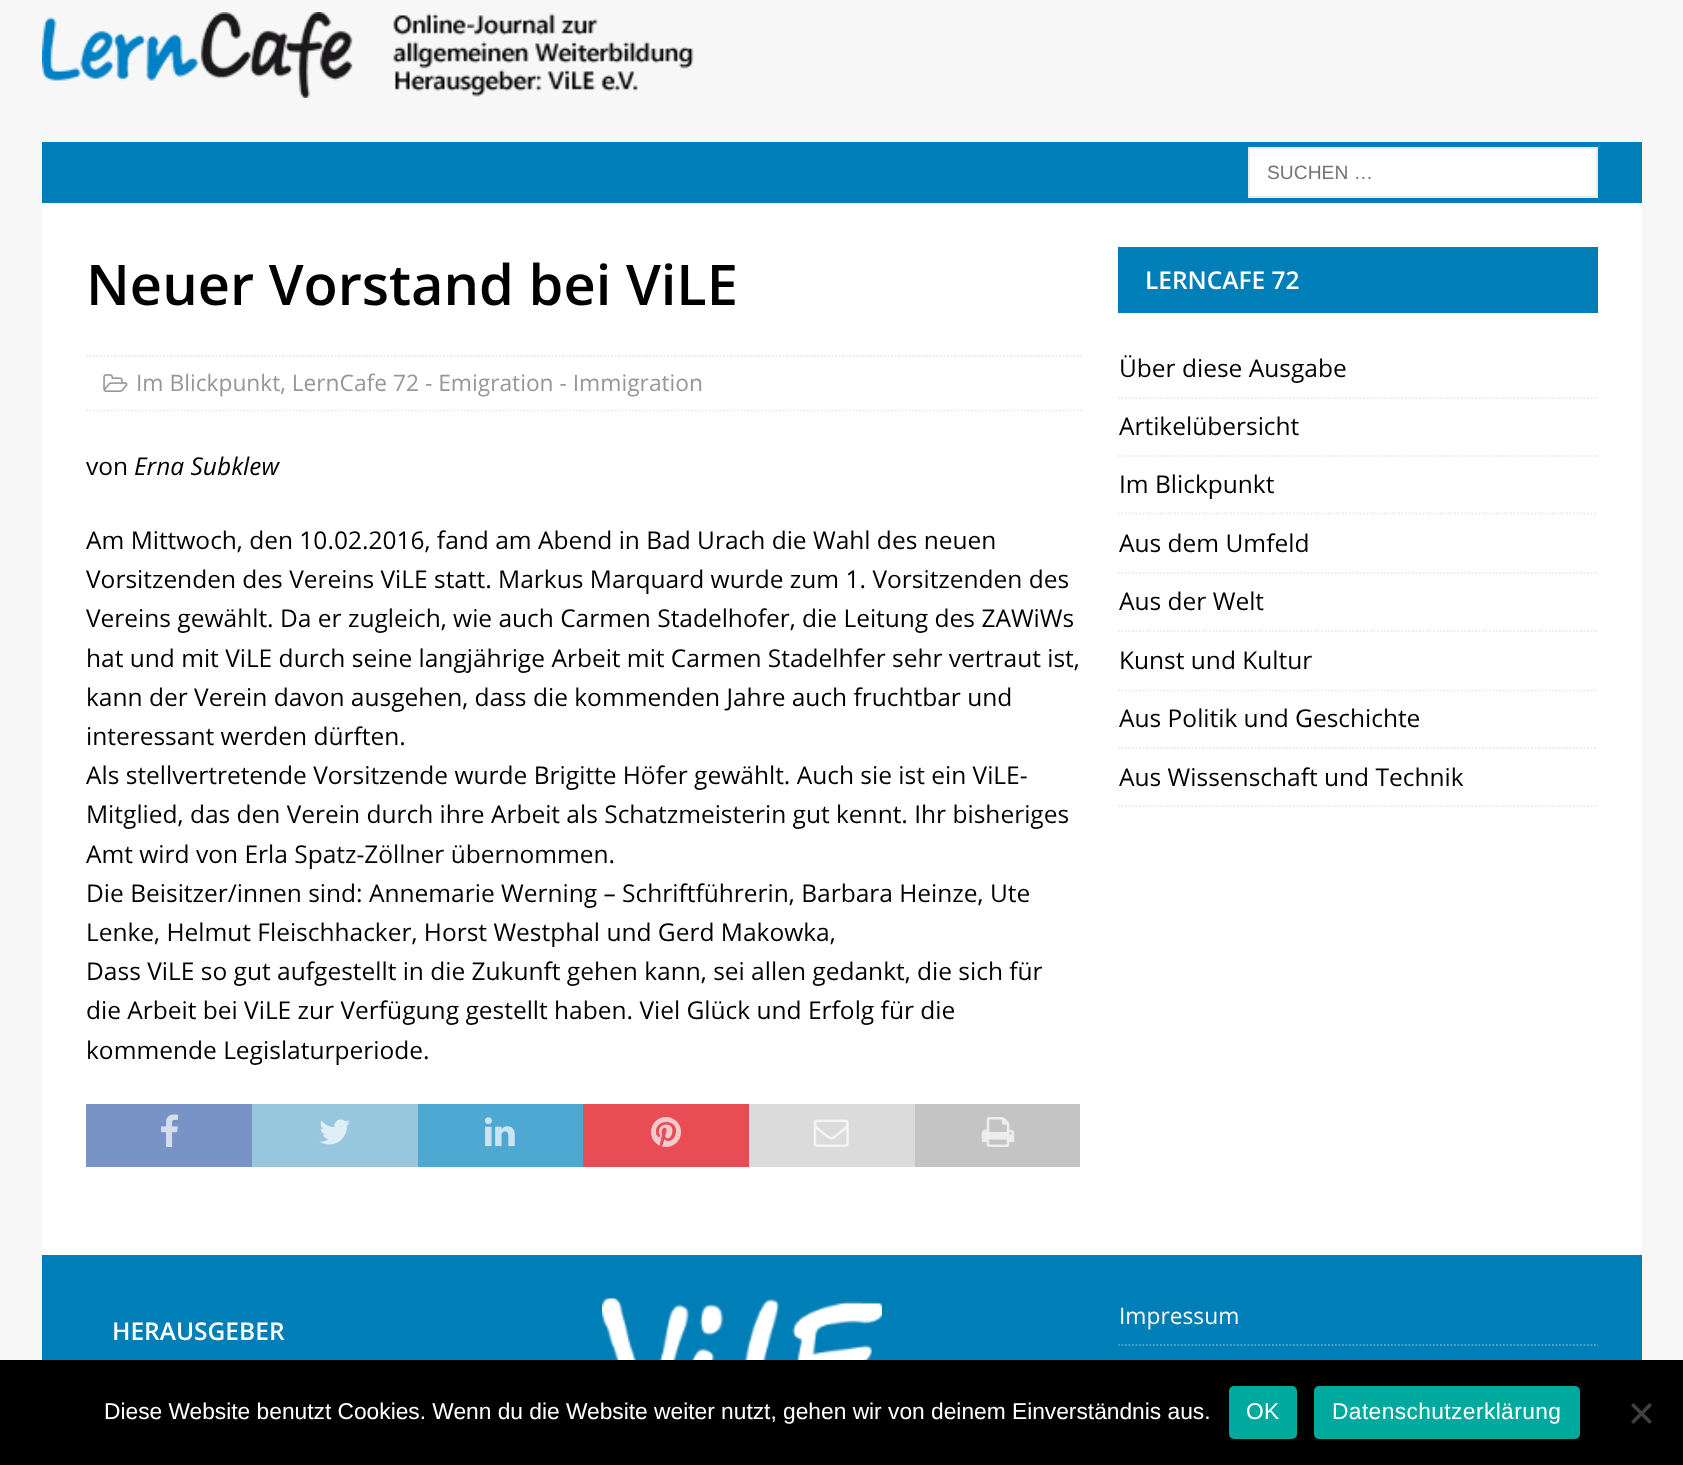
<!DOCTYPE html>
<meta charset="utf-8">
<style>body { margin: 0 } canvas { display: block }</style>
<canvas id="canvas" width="1683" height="1465"></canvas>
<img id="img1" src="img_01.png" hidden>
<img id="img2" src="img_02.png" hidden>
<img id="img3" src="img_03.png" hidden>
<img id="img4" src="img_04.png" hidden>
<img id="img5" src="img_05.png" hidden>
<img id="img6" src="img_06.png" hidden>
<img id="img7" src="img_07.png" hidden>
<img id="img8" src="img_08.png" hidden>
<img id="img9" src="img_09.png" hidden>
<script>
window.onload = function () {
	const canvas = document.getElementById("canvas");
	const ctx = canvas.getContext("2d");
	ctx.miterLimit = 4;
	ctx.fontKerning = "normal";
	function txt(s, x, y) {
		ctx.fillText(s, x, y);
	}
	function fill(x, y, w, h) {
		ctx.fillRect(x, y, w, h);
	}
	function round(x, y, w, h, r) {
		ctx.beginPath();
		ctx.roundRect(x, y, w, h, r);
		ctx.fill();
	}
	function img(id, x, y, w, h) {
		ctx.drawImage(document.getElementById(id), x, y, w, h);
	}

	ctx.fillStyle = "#F7F7F7";
	fill(0, 0, 1683, 1465);
	img("img1", 42, 12, 652, 86);
	ctx.fillStyle = "#007EB7";
	fill(42, 142, 1600, 61);
	ctx.fillStyle = "#FFFFFF";
	ctx.beginPath();
	ctx.rect(1249, 148, 348, 49);
	ctx.fill();
	ctx.strokeStyle = "#EBEBEB";
	ctx.lineWidth = 2;
	ctx.stroke();
	fill(42, 203, 1600, 1052);
	ctx.beginPath();
	ctx.moveTo(86, 356);
	ctx.lineTo(1081.5, 356);
	ctx.lineWidth = 1.8;
	ctx.setLineDash([1.75, 1.75]);
	ctx.stroke();
	ctx.beginPath();
	ctx.moveTo(86, 410.5);
	ctx.lineTo(1081.5, 410.5);
	ctx.stroke();
	img("img2", 103, 374, 25, 18);
	ctx.fillStyle = "#7893C6";
	fill(86, 1104, 166, 63);
	img("img3", 161, 1114, 17, 33);
	ctx.fillStyle = "#97C6DF";
	fill(252, 1104, 166, 63);
	img("img4", 319, 1119, 31, 26);
	ctx.fillStyle = "#4DA9D2";
	fill(418, 1104, 165, 63);
	img("img5", 484, 1117, 31, 30);
	ctx.fillStyle = "#E84D56";
	fill(583, 1104, 166, 63);
	img("img6", 651, 1117, 30, 30);
	ctx.fillStyle = "#DBDBDB";
	fill(749, 1104, 166, 63);
	img("img7", 813, 1119, 36, 28);
	ctx.fillStyle = "#C4C4C4";
	fill(915, 1104, 165, 63);
	img("img8", 981, 1117, 34, 30);
	ctx.fillStyle = "#007EB7";
	fill(1118, 247, 480, 66);
	ctx.beginPath();
	ctx.moveTo(1118, 398);
	ctx.lineTo(1598, 398);
	ctx.stroke();
	ctx.beginPath();
	ctx.moveTo(1118, 456);
	ctx.lineTo(1598, 456);
	ctx.stroke();
	ctx.beginPath();
	ctx.moveTo(1118, 513.5);
	ctx.lineTo(1598, 513.5);
	ctx.stroke();
	ctx.beginPath();
	ctx.moveTo(1118, 573);
	ctx.lineTo(1598, 573);
	ctx.stroke();
	ctx.beginPath();
	ctx.moveTo(1118, 631);
	ctx.lineTo(1598, 631);
	ctx.stroke();
	ctx.beginPath();
	ctx.moveTo(1118, 690.5);
	ctx.lineTo(1598, 690.5);
	ctx.stroke();
	ctx.beginPath();
	ctx.moveTo(1118, 748);
	ctx.lineTo(1598, 748);
	ctx.stroke();
	ctx.beginPath();
	ctx.moveTo(1118, 806);
	ctx.lineTo(1598, 806);
	ctx.stroke();
	fill(42, 1255, 1600, 105);
	img("img9", 602, 1298, 280, 62);
	ctx.beginPath();
	ctx.moveTo(1118, 1345);
	ctx.lineTo(1598, 1345);
	ctx.strokeStyle = "#4DA5CD";
	ctx.stroke();
	ctx.fillStyle = "#000000";
	fill(0, 1360, 1683, 105);
	ctx.fillStyle = "#00A99D";
	round(1229, 1386, 68, 53, 5);
	round(1314, 1386, 266, 53, 5);
	ctx.fillStyle = "#404040";
	ctx.beginPath();
	ctx.moveTo(1649.5, 1403);
	ctx.lineTo(1652, 1405.5);
	ctx.lineTo(1633.5, 1424);
	ctx.lineTo(1631, 1421.5);
	ctx.closePath();
	ctx.fill();
	ctx.beginPath();
	ctx.moveTo(1631, 1405.5);
	ctx.lineTo(1633.5, 1403);
	ctx.lineTo(1652, 1421.5);
	ctx.lineTo(1649.5, 1424);
	ctx.closePath();
	ctx.fill();
	ctx.font = "19.25px Liberation Sans";
	ctx.fillStyle = "#757575";
	txt("SUCHEN …", 1267, 179);
	ctx.font = "600 56px Open Sans";
	ctx.fillStyle = "#000000";
	txt("Neuer Vorstand bei ViLE", 86, 305);
	ctx.font = "22.75px Open Sans";
	ctx.fillStyle = "#979797";
	txt("Im Blickpunkt, LernCafe 72 - Emigration - Immigration", 136, 391);
	ctx.font = "24.5px Open Sans";
	ctx.fillStyle = "#000000";
	txt("von", 86, 475);
	ctx.font = "italic 24.5px Open Sans";
	txt("Erna Subklew", 134, 475);
	ctx.font = "24.5px Open Sans";
	txt("Am Mittwoch, den 10.02.2016, fand am Abend in Bad Urach die Wahl des neuen", 86, 549);
	txt("Vorsitzenden des Vereins ViLE statt. Markus Marquard wurde zum 1. Vorsitzenden des", 86, 588);
	txt("Vereins gewählt. Da er zugleich, wie auch Carmen Stadelhofer, die Leitung des ZAWiWs", 86, 627);
	txt("hat und mit ViLE durch seine langjährige Arbeit mit Carmen Stadelhfer sehr vertraut ist,", 86, 667);
	txt("kann der Verein davon ausgehen, dass die kommenden Jahre auch fruchtbar und", 86, 706);
	txt("interessant werden dürften.", 86, 745);
	txt("Als stellvertretende Vorsitzende wurde Brigitte Höfer gewählt. Auch sie ist ein ViLE-", 86, 784);
	txt("Mitglied, das den Verein durch ihre Arbeit als Schatzmeisterin gut kennt. Ihr bisheriges", 86, 823);
	txt("Amt wird von Erla Spatz-Zöllner übernommen.", 86, 863);
	txt("Die Beisitzer/innen sind: Annemarie Werning – Schriftführerin, Barbara Heinze, Ute", 86, 902);
	txt("Lenke, Helmut Fleischhacker, Horst Westphal und Gerd Makowka,", 86, 941);
	txt("Dass ViLE so gut aufgestellt in die Zukunft gehen kann, sei allen gedankt, die sich für", 86, 980);
	txt("die Arbeit bei ViLE zur Verfügung gestellt haben. Viel Glück und Erfolg für die", 86, 1019);
	txt("kommende Legislaturperiode.", 86, 1059);
	ctx.font = "600 24.5px Open Sans";
	ctx.fillStyle = "#FFFFFF";
	txt("LERNCAFE 72", 1145, 289);
	ctx.font = "24.5px Open Sans";
	ctx.fillStyle = "#000000";
	txt("Über diese Ausgabe", 1119, 377);
	txt("Artikelübersicht", 1119, 435);
	txt("Im Blickpunkt", 1119, 493);
	txt("Aus dem Umfeld", 1119, 552);
	txt("Aus der Welt", 1119, 610);
	txt("Kunst und Kultur", 1119, 669);
	txt("Aus Politik und Geschichte", 1119, 727);
	txt("Aus Wissenschaft und Technik", 1119, 786);
	ctx.font = "600 24.5px Open Sans";
	ctx.fillStyle = "#FFFFFF";
	txt("HERAUSGEBER", 112, 1340);
	ctx.font = "22.75px Open Sans";
	ctx.fillStyle = "#F7F7F7";
	txt("Impressum", 1119, 1324);
	ctx.font = "22.75px Liberation Sans";
	ctx.fillStyle = "#FFFFFF";
	txt("Diese Website benutzt Cookies. Wenn du die Website weiter nutzt, gehen wir von deinem Einverständnis aus.", 104, 1419);
	ctx.letterSpacing = "0.4px";
	txt("OK", 1246, 1419);
	txt("Datenschutzerklärung", 1332, 1419);
};
</script>
